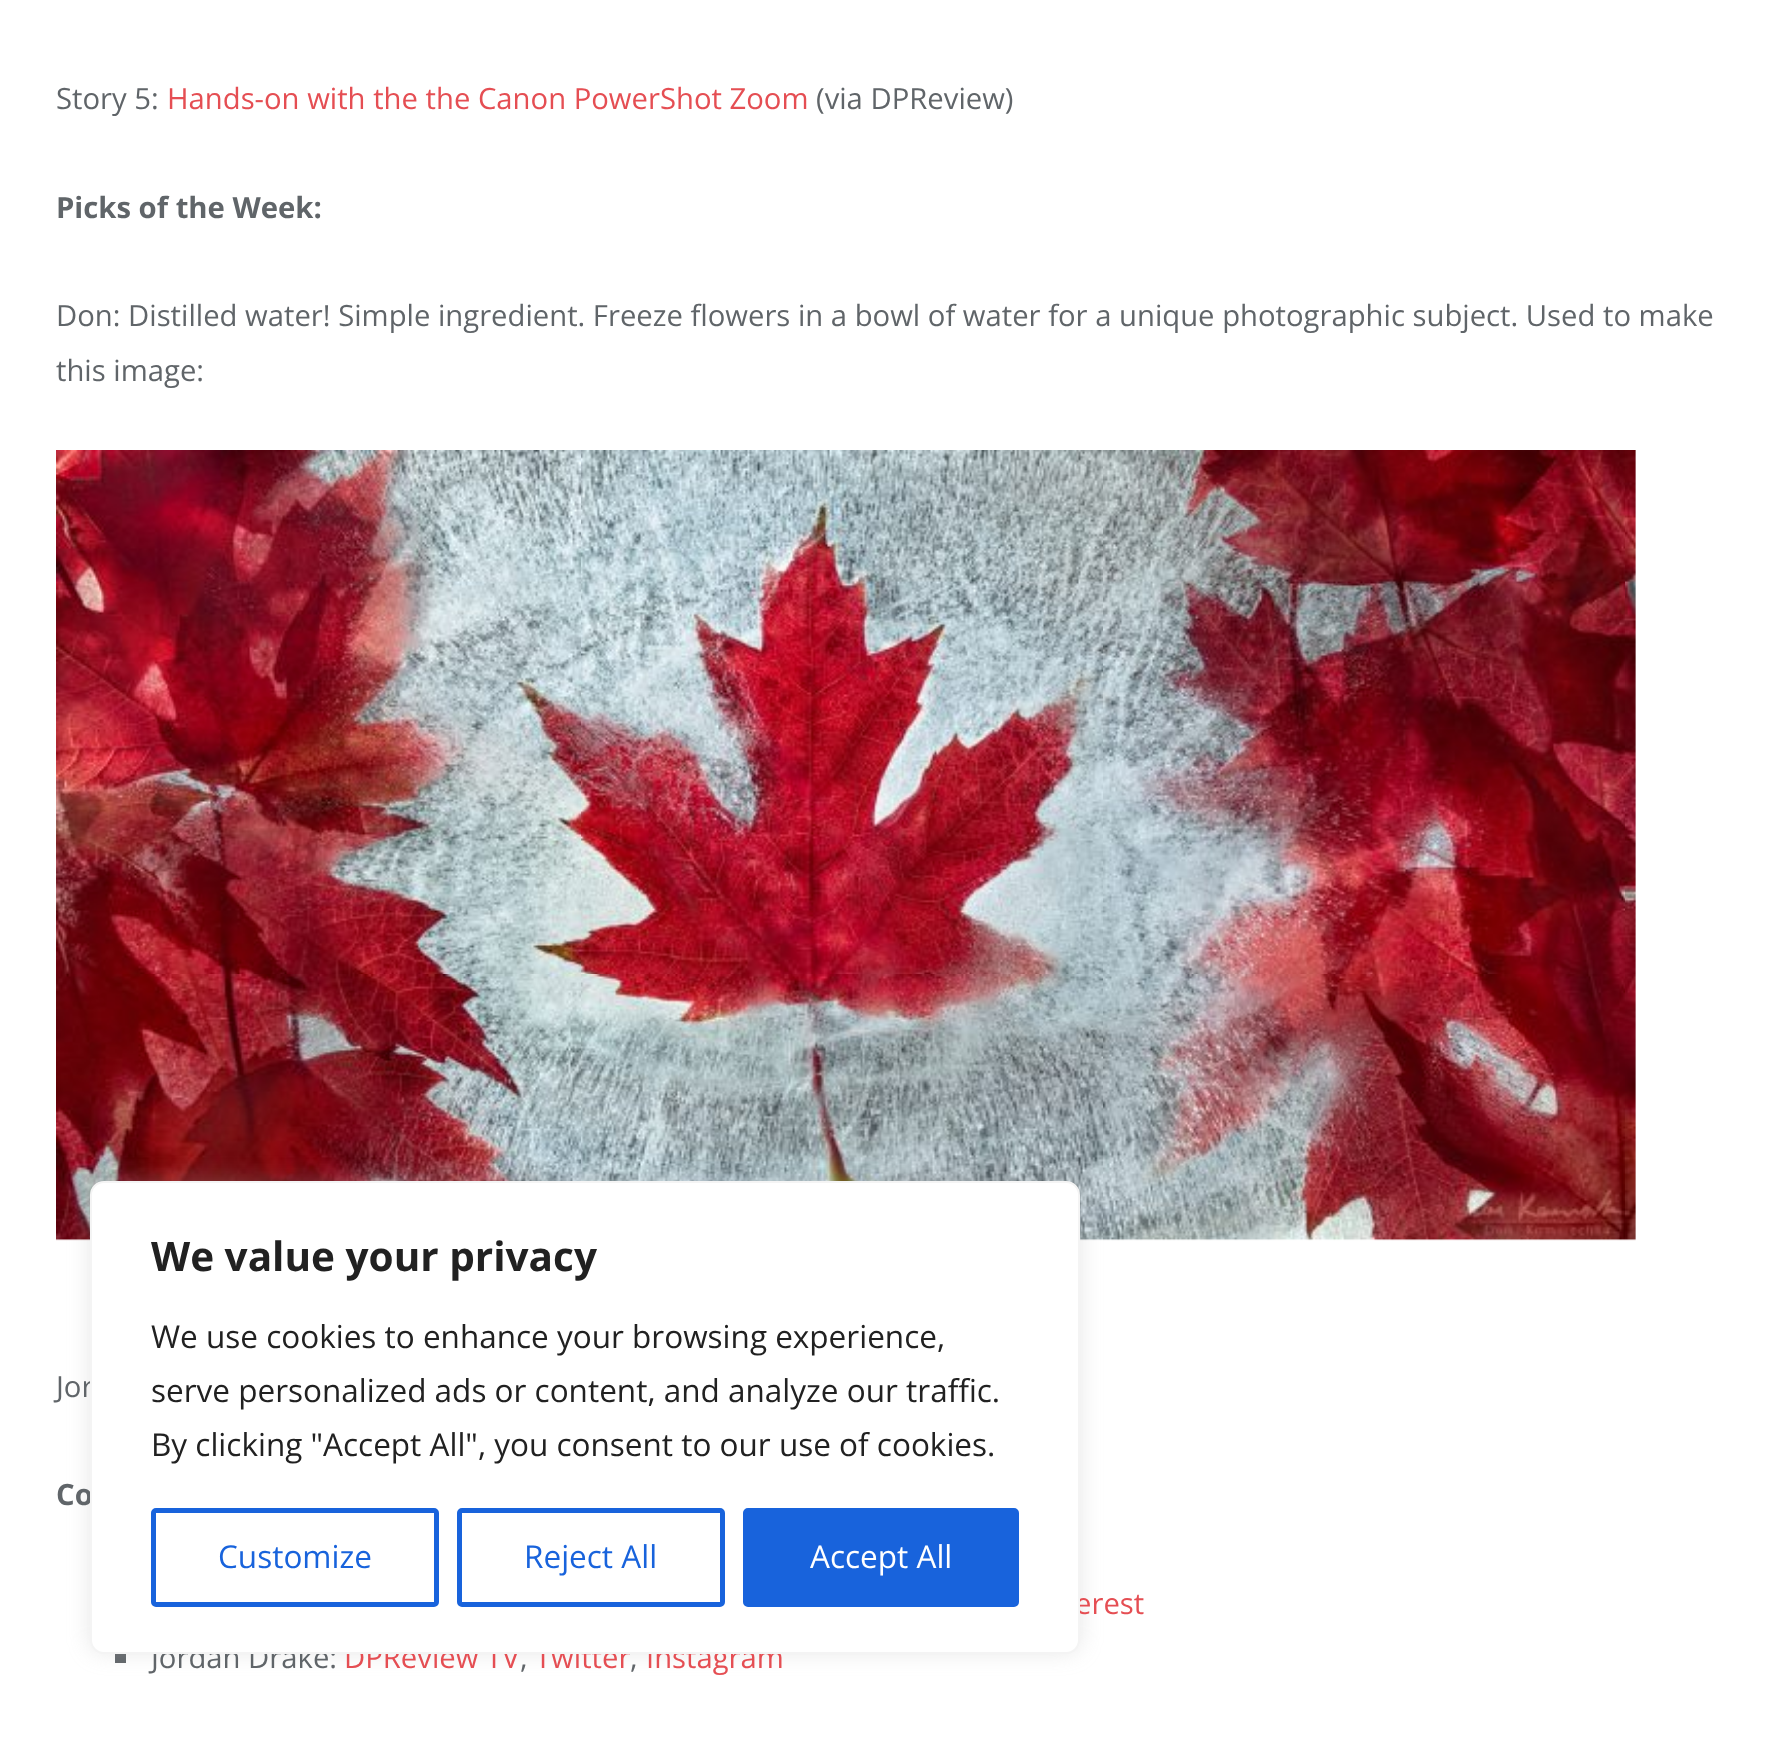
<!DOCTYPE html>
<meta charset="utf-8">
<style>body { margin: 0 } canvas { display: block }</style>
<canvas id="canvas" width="1770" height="1743"></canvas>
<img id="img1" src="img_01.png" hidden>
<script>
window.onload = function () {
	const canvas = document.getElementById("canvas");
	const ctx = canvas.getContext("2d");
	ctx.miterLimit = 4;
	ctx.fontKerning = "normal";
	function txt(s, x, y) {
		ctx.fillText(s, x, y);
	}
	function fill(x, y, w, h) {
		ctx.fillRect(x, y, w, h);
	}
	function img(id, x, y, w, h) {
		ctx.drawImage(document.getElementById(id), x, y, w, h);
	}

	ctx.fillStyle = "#FFFFFF";
	fill(0, 0, 1770, 1743);
	img("img1", 56, 450, 1580, 791);
	ctx.fillStyle = "#606569";
	fill(115, 1654, 11, 9);
	ctx.fillStyle = "rgba(172, 171, 171, 0.3)";
	ctx.filter = "blur(11px)";
	ctx.beginPath();
	ctx.roundRect(90, 1179, 990, 473, 14);
	ctx.fill();
	ctx.filter = "none";
	ctx.font = "29.25px Open Sans";
	ctx.fillStyle = "#606569";
	txt("Story 5:", 56, 109);
	ctx.fillStyle = "#E54E53";
	txt("Hands-on with the the Canon PowerShot Zoom", 167, 109);
	ctx.fillStyle = "#606569";
	txt("(via DPReview)", 816, 109);
	ctx.font = "bold 29.25px Open Sans";
	txt("Picks of the Week:", 56, 218);
	ctx.font = "29.25px Open Sans";
	txt("Don: Distilled water! Simple ingredient. Freeze flowers in a bowl of water for a unique photographic subject. Used to make", 56, 326);
	txt("this image:", 56, 381);
	txt("Jor", 56, 1397);
	ctx.font = "bold 29.25px Open Sans";
	txt("Co", 56, 1505);
	ctx.font = "29.25px Open Sans";
	ctx.fillStyle = "#E54E53";
	txt("erest", 1075, 1614);
	ctx.fillStyle = "#606569";
	txt("Jordan Drake:", 151, 1668);
	ctx.fillStyle = "#E54E53";
	txt("DPReview TV", 344, 1668);
	txt("Twitter", 535, 1668);
	txt("Instagram", 646, 1668);
	ctx.fillStyle = "#606569";
	txt(",", 520, 1668);
	txt(",", 630, 1668);
	ctx.fillStyle = "#FFFFFF";
	ctx.beginPath();
	ctx.roundRect(91, 1182, 988, 471, 13);
	ctx.fill();
	ctx.strokeStyle = "#F4F4F4";
	ctx.lineWidth = 2;
	ctx.stroke();
	ctx.font = "bold 40.5px Open Sans";
	ctx.fillStyle = "#212121";
	txt("We value your privacy", 151, 1271);
	ctx.font = "31.5px Open Sans";
	txt("We use cookies to enhance your browsing experience,", 151, 1348);
	txt("serve personalized ads or content, and analyze our traffic.", 151, 1402);
	txt("By clicking \"Accept All\", you consent to our use of cookies.", 151, 1456);
	ctx.beginPath();
	ctx.roundRect(153.5, 1510.5, 283, 94, 2.5);
	ctx.strokeStyle = "#1863DC";
	ctx.lineWidth = 5;
	ctx.stroke();
	ctx.fillStyle = "#1863DC";
	txt("Customize", 218, 1568);
	ctx.beginPath();
	ctx.roundRect(459.5, 1510.5, 263, 94, 2.5);
	ctx.stroke();
	txt("Reject All", 524, 1568);
	ctx.beginPath();
	ctx.roundRect(745.5, 1510.5, 271, 94, 2.5);
	ctx.fill();
	ctx.stroke();
	ctx.fillStyle = "#FFFFFF";
	txt("Accept All", 810, 1568);
};
</script>
